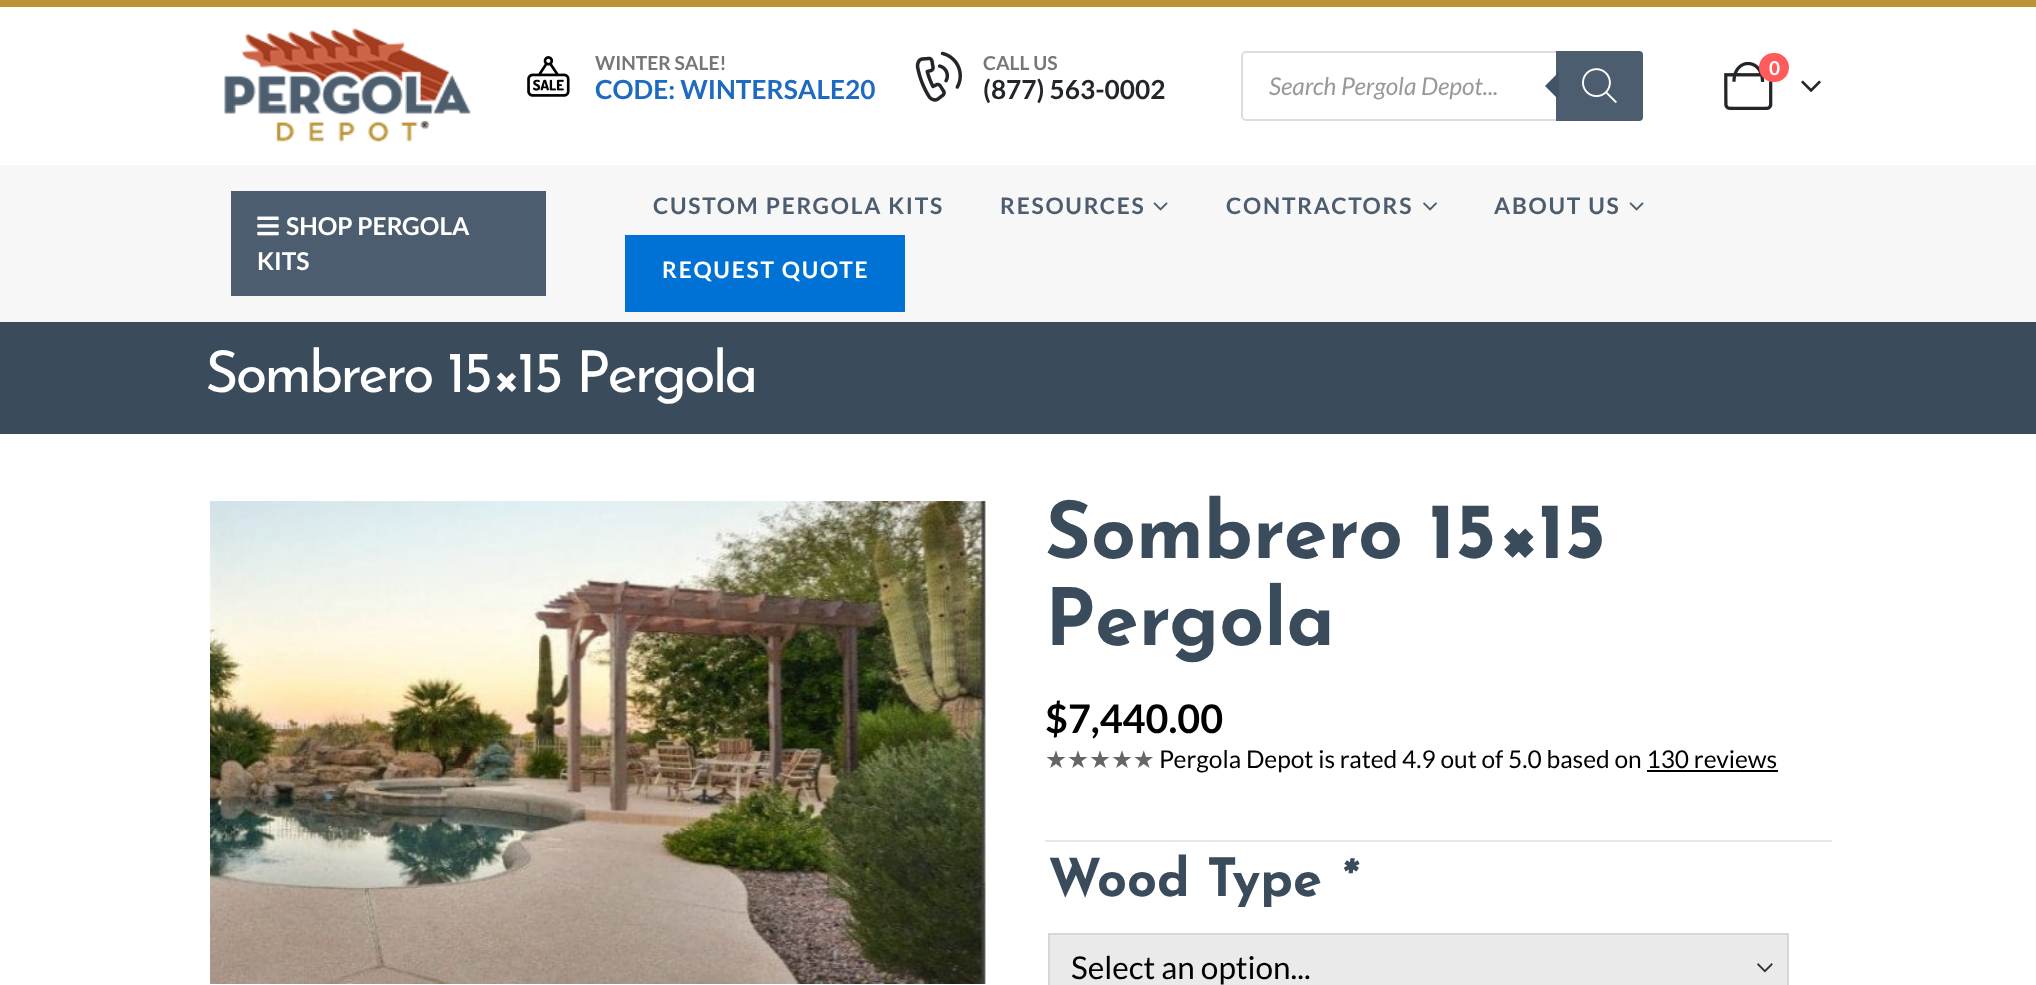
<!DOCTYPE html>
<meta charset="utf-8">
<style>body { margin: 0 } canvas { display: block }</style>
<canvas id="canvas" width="2036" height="985"></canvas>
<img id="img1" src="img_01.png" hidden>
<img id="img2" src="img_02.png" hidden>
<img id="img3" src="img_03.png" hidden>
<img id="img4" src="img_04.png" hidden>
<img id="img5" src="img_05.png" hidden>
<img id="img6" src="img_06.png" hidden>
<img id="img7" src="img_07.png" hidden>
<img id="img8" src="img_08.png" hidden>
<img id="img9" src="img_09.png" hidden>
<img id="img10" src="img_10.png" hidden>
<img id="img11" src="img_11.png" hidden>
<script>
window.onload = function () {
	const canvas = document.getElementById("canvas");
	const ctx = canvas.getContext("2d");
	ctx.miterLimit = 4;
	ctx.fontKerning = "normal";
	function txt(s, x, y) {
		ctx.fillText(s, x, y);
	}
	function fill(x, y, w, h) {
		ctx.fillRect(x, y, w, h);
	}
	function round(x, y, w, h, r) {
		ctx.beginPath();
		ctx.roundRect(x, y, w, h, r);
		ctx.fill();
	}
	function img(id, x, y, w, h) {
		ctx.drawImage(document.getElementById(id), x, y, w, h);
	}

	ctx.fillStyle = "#FFFFFF";
	fill(0, 0, 2036, 985);
	ctx.fillStyle = "#BB9236";
	fill(0, 0, 2036, 7);
	img("img1", 224, 28, 247, 114);
	img("img2", 527, 56, 43, 41);
	img("img3", 915, 51, 47, 51);
	img("img4", 1724, 61, 49, 49);
	ctx.fillStyle = "#FF5B5B";
	round(1759, 53, 30, 29, 14.5);
	img("img5", 1801, 80, 20, 12);
	ctx.beginPath();
	ctx.roundRect(1242, 52, 400, 68, 4);
	ctx.strokeStyle = "#DDDDDD";
	ctx.lineWidth = 2;
	ctx.stroke();
	ctx.fillStyle = "#4C5D6F";
	ctx.beginPath();
	ctx.roundRect(1556, 51, 87, 70, [0, 4, 4, 0]);
	ctx.fill();
	ctx.fillStyle = "#415364";
	ctx.beginPath();
	ctx.moveTo(1559, 72);
	ctx.lineTo(1559, 100);
	ctx.lineTo(1545, 86);
	ctx.closePath();
	ctx.fill();
	img("img6", 1582, 68, 35, 36);
	ctx.fillStyle = "#F7F7F7";
	fill(0, 165, 2036, 157);
	ctx.fillStyle = "#4C5D6F";
	fill(231, 191, 315, 105);
	img("img7", 257, 216, 22, 20);
	img("img8", 1153, 202, 15, 9);
	img("img9", 1423, 202, 14, 9);
	img("img8", 1629, 202, 15, 9);
	ctx.fillStyle = "#0072D6";
	fill(625, 235, 280, 77);
	ctx.fillStyle = "#3A4B5B";
	fill(0, 322, 2036, 112);
	img("img10", 210, 501, 776, 483);
	ctx.fillStyle = "#000000";
	fill(1647, 770, 131, 2);
	ctx.fillStyle = "#E7E7E7";
	fill(1045, 840, 787, 2);
	ctx.fillStyle = "#EAEAEA";
	fill(1050, 935, 737, 50);
	img("img11", 1757, 963, 16, 10);
	ctx.strokeStyle = "#D7D7D7";
	ctx.strokeRect(1049, 934, 739, 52);
	ctx.font = "bold 19.25px Lato";
	ctx.fillStyle = "#777777";
	txt("WINTER SALE!", 595, 70);
	ctx.font = "bold 26.25px Lato";
	ctx.fillStyle = "#1F6AC1";
	txt("CODE: WINTERSALE20", 595, 99);
	ctx.font = "bold 19.25px Lato";
	ctx.fillStyle = "#777777";
	txt("CALL US", 983, 70);
	ctx.font = "bold 26.25px Lato";
	ctx.fillStyle = "#222529";
	txt("(877) 563-0002", 983, 99);
	ctx.font = "bold 19px Lato";
	ctx.fillStyle = "#FFFFFF";
	txt("0", 1769, 75);
	ctx.font = "italic 24.5px Lato";
	ctx.fillStyle = "#999999";
	txt("Search Pergola Depot...", 1269, 95);
	ctx.font = "bold 24.5px Lato";
	ctx.fillStyle = "#FFFFFF";
	txt("SHOP PERGOLA", 286, 235);
	txt("KITS", 257, 270);
	ctx.letterSpacing = "1.75px";
	ctx.font = "bold 22.75px Lato";
	ctx.fillStyle = "#4C5D6F";
	txt("CUSTOM PERGOLA KITS", 653, 214);
	txt("RESOURCES", 1000, 214);
	txt("CONTRACTORS", 1226, 214);
	txt("ABOUT US", 1494, 214);
	ctx.fillStyle = "#FFFFFF";
	txt("REQUEST QUOTE", 662, 278);
	ctx.letterSpacing = "-2.9px";
	ctx.font = "57.75px Josefin Sans";
	txt("Sombrero 15×15 Pergola", 205, 392);
	ctx.letterSpacing = "0px";
	ctx.font = "bold 78.75px Josefin Sans";
	ctx.fillStyle = "#3A4B5B";
	txt("Sombrero 15×15", 1045, 558);
	txt("Pergola", 1045, 645);
	ctx.font = "bold 39.5px Lato";
	ctx.fillStyle = "#000000";
	txt("$7,440.00", 1045, 733);
	ctx.font = "24.5px DejaVu Sans";
	ctx.fillStyle = "#666666";
	txt("★★★★★", 1045, 768);
	ctx.font = "24.5px Lato";
	ctx.fillStyle = "#000000";
	txt("Pergola Depot is rated 4.9 out of 5.0 based on 130 reviews", 1159, 768);
	ctx.font = "bold 52.5px Josefin Sans";
	ctx.fillStyle = "#3A4B5B";
	txt("Wood Type", 1048, 896);
	ctx.font = "italic bold 52.5px Josefin Sans";
	txt("*", 1339, 896);
	ctx.font = "31.5px Lato";
	ctx.fillStyle = "#000000";
	txt("Select an option...", 1071, 979);
};
</script>
